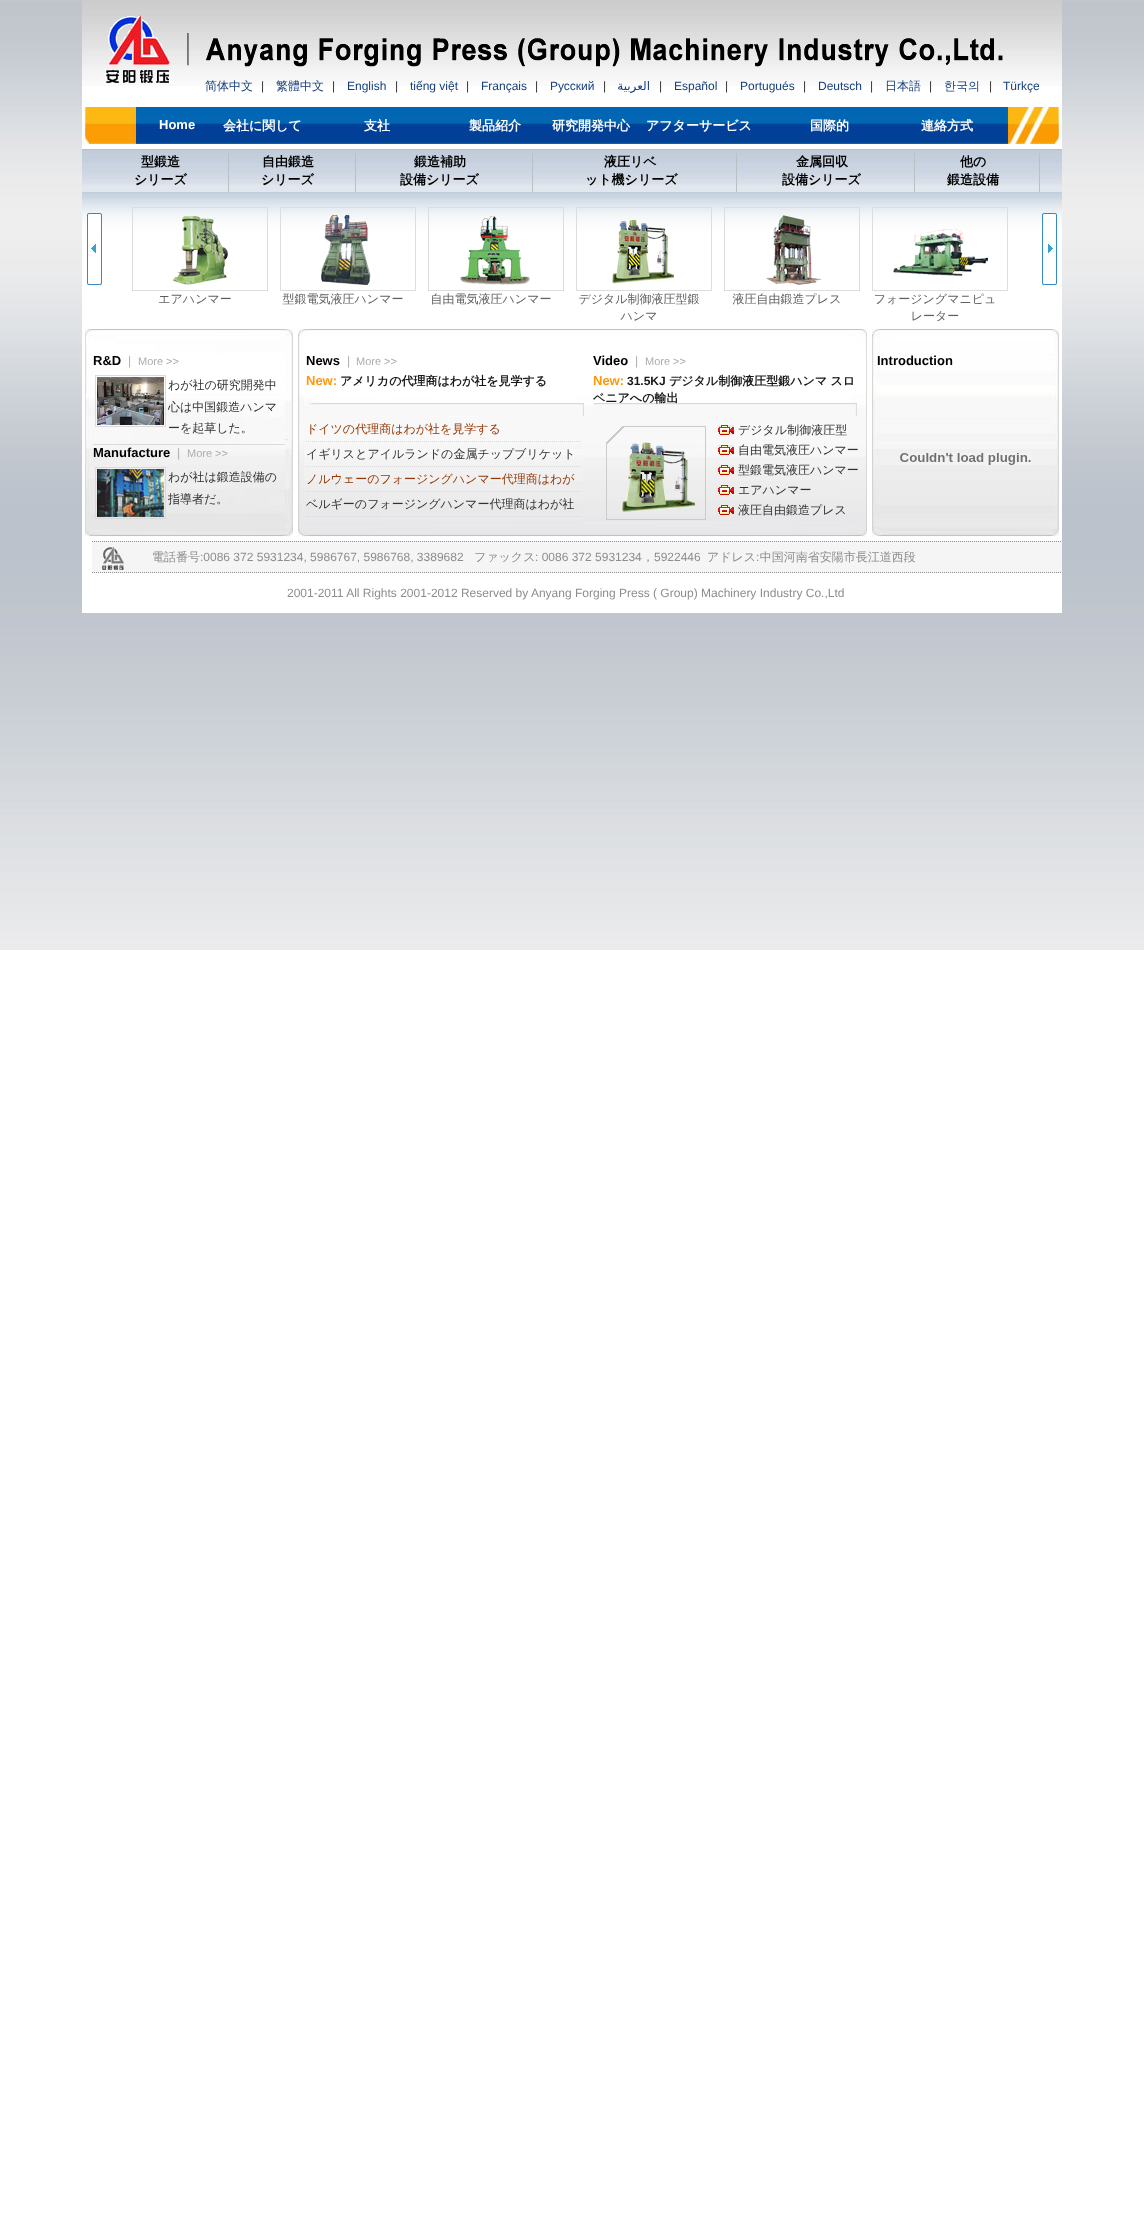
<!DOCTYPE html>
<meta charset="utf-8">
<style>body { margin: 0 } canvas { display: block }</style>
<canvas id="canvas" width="1144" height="2226"></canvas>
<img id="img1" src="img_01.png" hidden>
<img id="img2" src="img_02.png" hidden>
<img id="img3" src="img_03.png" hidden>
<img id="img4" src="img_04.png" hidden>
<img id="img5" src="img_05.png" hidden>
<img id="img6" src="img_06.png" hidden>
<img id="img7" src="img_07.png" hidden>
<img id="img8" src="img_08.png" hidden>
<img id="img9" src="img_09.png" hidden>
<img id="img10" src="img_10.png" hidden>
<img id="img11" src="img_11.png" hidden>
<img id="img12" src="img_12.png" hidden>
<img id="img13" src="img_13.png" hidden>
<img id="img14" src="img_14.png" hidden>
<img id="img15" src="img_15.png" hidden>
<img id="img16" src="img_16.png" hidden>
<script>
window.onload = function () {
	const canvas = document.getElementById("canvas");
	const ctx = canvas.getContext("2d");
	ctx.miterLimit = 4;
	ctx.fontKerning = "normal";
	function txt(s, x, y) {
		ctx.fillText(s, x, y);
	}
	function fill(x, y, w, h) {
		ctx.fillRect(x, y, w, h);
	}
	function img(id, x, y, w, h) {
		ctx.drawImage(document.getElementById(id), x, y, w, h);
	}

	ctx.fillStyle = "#FFFFFF";
	fill(0, 0, 1144, 2226);
	img("img1", 0, 0, 1144, 950);
	fill(82, 86, 980, 527);
	img("img2", 82, 0, 980, 86);
	img("img3", 101, 13, 88, 70);
	img("img4", 206, 38, 797, 29);
	img("img5", 82, 107, 980, 37);
	ctx.fillStyle = "#E0E7EF";
	fill(82, 185, 980, 7);
	img("img6", 82, 149, 980, 36);
	ctx.fillStyle = "#B8C2C4";
	fill(228, 153, 1, 39);
	fill(355, 153, 1, 39);
	fill(532, 153, 1, 39);
	fill(736, 153, 1, 39);
	fill(914, 153, 1, 39);
	fill(1039, 153, 1, 39);
	img("img7", 82, 192, 980, 129);
	img("img8", 85, 329, 208, 207);
	ctx.fillStyle = "#DADADA";
	fill(93, 444, 192, 1);
	ctx.strokeStyle = "#DADADA";
	ctx.strokeRect(95.5, 375.5, 70, 51);
	img("img9", 97, 377, 67, 48);
	ctx.strokeRect(95.5, 467.5, 70, 51);
	img("img10", 97, 469, 67, 48);
	img("img11", 298, 329, 569, 207);
	ctx.beginPath();
	ctx.moveTo(306, 441.5);
	ctx.lineTo(581, 441.5);
	ctx.setLineDash([1, 1]);
	ctx.stroke();
	ctx.beginPath();
	ctx.moveTo(306, 466.5);
	ctx.lineTo(581, 466.5);
	ctx.stroke();
	ctx.beginPath();
	ctx.moveTo(306, 491.5);
	ctx.lineTo(581, 491.5);
	ctx.stroke();
	ctx.beginPath();
	ctx.moveTo(306, 516.5);
	ctx.lineTo(581, 516.5);
	ctx.stroke();
	img("img12", 621, 442, 74, 71);
	img("img13", 718, 425, 16, 10);
	img("img13", 718, 445, 16, 10);
	img("img13", 718, 465, 16, 10);
	img("img13", 718, 485, 16, 10);
	img("img13", 718, 505, 16, 10);
	img("img14", 872, 329, 187, 207);
	img("img15", 900, 453, 131, 12);
	ctx.fillStyle = "#F5F5F5";
	fill(92, 541, 970, 32);
	img("img16", 101, 546, 23, 24);
	ctx.save();
	ctx.beginPath();
	ctx.rect(82, 0, 980, 613);
	ctx.clip();
	ctx.beginPath();
	ctx.moveTo(92, 541.5);
	ctx.lineTo(1112, 541.5);
	ctx.strokeStyle = "#8E8E8E";
	ctx.stroke();
	ctx.beginPath();
	ctx.moveTo(92, 572.5);
	ctx.lineTo(1112, 572.5);
	ctx.stroke();
	ctx.restore();
	ctx.font = "500 12px WenQuanYi Zen Hei";
	ctx.fillStyle = "#173F7D";
	txt("简体中文", 205, 90);
	ctx.font = "12px Liberation Sans";
	ctx.fillStyle = "#323234";
	txt("|", 261, 90);
	ctx.font = "500 12px WenQuanYi Zen Hei";
	ctx.fillStyle = "#173F7D";
	txt("繁體中文", 276, 90);
	ctx.font = "12px Liberation Sans";
	ctx.fillStyle = "#323234";
	txt("|", 332, 90);
	ctx.fillStyle = "#173F7D";
	txt("English", 347, 90);
	ctx.fillStyle = "#323234";
	txt("|", 395, 90);
	ctx.fillStyle = "#173F7D";
	txt("tiếng việt", 410, 90);
	ctx.fillStyle = "#323234";
	txt("|", 466, 90);
	ctx.fillStyle = "#173F7D";
	txt("Français", 481, 90);
	ctx.fillStyle = "#323234";
	txt("|", 535, 90);
	ctx.fillStyle = "#173F7D";
	txt("Русский", 550, 90);
	ctx.fillStyle = "#323234";
	txt("|", 603, 90);
	ctx.direction = "rtl";
	ctx.font = "12px DejaVu Sans";
	ctx.fillStyle = "#173F7D";
	txt("العربية", 650, 90);
	ctx.direction = "ltr";
	ctx.font = "12px Liberation Sans";
	ctx.fillStyle = "#323234";
	txt("|", 659, 90);
	ctx.fillStyle = "#173F7D";
	txt("Español", 674, 90);
	ctx.fillStyle = "#323234";
	txt("|", 725, 90);
	ctx.fillStyle = "#173F7D";
	txt("Portugués", 740, 90);
	ctx.fillStyle = "#323234";
	txt("|", 803, 90);
	ctx.fillStyle = "#173F7D";
	txt("Deutsch", 818, 90);
	ctx.fillStyle = "#323234";
	txt("|", 870, 90);
	ctx.font = "500 12px WenQuanYi Zen Hei";
	ctx.fillStyle = "#173F7D";
	txt("日本語", 885, 90);
	ctx.font = "12px Liberation Sans";
	ctx.fillStyle = "#323234";
	txt("|", 929, 90);
	ctx.font = "500 12px WenQuanYi Zen Hei";
	ctx.fillStyle = "#173F7D";
	txt("한국의", 944, 90);
	ctx.font = "12px Liberation Sans";
	ctx.fillStyle = "#323234";
	txt("|", 989, 90);
	ctx.fillStyle = "#173F7D";
	txt("Türkçe", 1003, 90);
	ctx.font = "bold 13px Liberation Sans";
	ctx.fillStyle = "#FFFFFF";
	txt("Home", 159, 129);
	ctx.font = "bold 13px WenQuanYi Zen Hei";
	txt("会社に関して", 223, 130);
	txt("支社", 364, 130);
	txt("製品紹介", 469, 130);
	txt("研究開発中心", 552, 130);
	txt("アフターサービス", 646, 130);
	txt("国際的", 810, 130);
	txt("連絡方式", 921, 130);
	ctx.fillStyle = "#000000";
	txt("型鍛造", 141, 166);
	txt("シリーズ", 134, 184);
	txt("自由鍛造", 262, 166);
	txt("シリーズ", 261, 184);
	txt("鍛造補助", 414, 166);
	txt("設備シリーズ", 400, 184);
	txt("液圧リベ", 604, 166);
	txt("ット機シリーズ", 585, 184);
	txt("金属回収", 796, 166);
	txt("設備シリーズ", 782, 184);
	txt("他の", 960, 166);
	txt("鍛造設備", 947, 184);
	ctx.font = "bold 13px Liberation Sans";
	txt("R&D", 93, 365);
	ctx.font = "12px Liberation Sans";
	ctx.fillStyle = "#ADADAD";
	txt("|", 128, 365);
	ctx.font = "11px Liberation Sans";
	txt("More >>", 138, 365);
	ctx.font = "500 12px WenQuanYi Zen Hei";
	ctx.fillStyle = "#323234";
	txt("わが社の研究開発中", 168, 389);
	txt("心は中国鍛造ハンマ", 168, 411);
	txt("ーを起草した。", 168, 432);
	ctx.font = "bold 13px Liberation Sans";
	ctx.fillStyle = "#000000";
	txt("Manufacture", 93, 457);
	ctx.font = "12px Liberation Sans";
	ctx.fillStyle = "#ADADAD";
	txt("|", 177, 457);
	ctx.font = "11px Liberation Sans";
	txt("More >>", 187, 457);
	ctx.font = "500 12px WenQuanYi Zen Hei";
	ctx.fillStyle = "#323234";
	txt("わが社は鍛造設備の", 168, 481);
	txt("指導者だ。", 168, 503);
	ctx.font = "bold 13px Liberation Sans";
	ctx.fillStyle = "#000000";
	txt("News", 306, 365);
	ctx.font = "12px Liberation Sans";
	ctx.fillStyle = "#ADADAD";
	txt("|", 347, 365);
	ctx.font = "11px Liberation Sans";
	txt("More >>", 356, 365);
	ctx.font = "bold 13px Liberation Sans";
	ctx.fillStyle = "#FE980C";
	txt("New:", 306, 385);
	ctx.font = "bold 12px WenQuanYi Zen Hei";
	ctx.fillStyle = "#171717";
	txt("アメリカの代理商はわが社を見学する", 340, 385);
	ctx.font = "500 12px WenQuanYi Zen Hei";
	ctx.fillStyle = "#933806";
	txt("ドイツの代理商はわが社を見学する", 306, 433);
	ctx.fillStyle = "#323234";
	txt("イギリスとアイルランドの金属チップブリケット", 306, 458);
	ctx.fillStyle = "#933806";
	txt("ノルウェーのフォージングハンマー代理商はわが", 306, 483);
	ctx.fillStyle = "#323234";
	txt("ベルギーのフォージングハンマー代理商はわが社", 306, 508);
	ctx.font = "bold 13px Liberation Sans";
	ctx.fillStyle = "#000000";
	txt("Video", 593, 365);
	ctx.font = "12px Liberation Sans";
	ctx.fillStyle = "#ADADAD";
	txt("|", 635, 365);
	ctx.font = "11px Liberation Sans";
	txt("More >>", 645, 365);
	ctx.font = "bold 13px Liberation Sans";
	ctx.fillStyle = "#FE980C";
	txt("New:", 593, 385);
	ctx.font = "bold 12px Liberation Sans";
	ctx.fillStyle = "#171717";
	txt("31.5KJ", 627, 385);
	ctx.font = "bold 12px WenQuanYi Zen Hei";
	txt("デジタル制御液圧型鍛ハンマ スロ", 669, 385);
	txt("ベニアへの輸出", 593, 402);
	ctx.font = "500 12px WenQuanYi Zen Hei";
	ctx.fillStyle = "#323234";
	txt("デジタル制御液圧型", 738, 434);
	txt("自由電気液圧ハンマー", 738, 454);
	txt("型鍛電気液圧ハンマー", 738, 474);
	txt("エアハンマー", 738, 494);
	txt("液圧自由鍛造プレス", 738, 514);
	ctx.font = "bold 13px Liberation Sans";
	ctx.fillStyle = "#000000";
	txt("Introduction", 877, 365);
	ctx.font = "500 12px WenQuanYi Zen Hei";
	ctx.fillStyle = "#8D8D8D";
	txt("電話番号", 152, 561);
	ctx.font = "12px Liberation Sans";
	txt(":0086 372 5931234, 5986767, 5986768, 3389682", 200, 561);
	ctx.font = "500 12px WenQuanYi Zen Hei";
	txt("ファックス", 474, 561);
	ctx.font = "12px Liberation Sans";
	txt(": 0086 372 5931234", 535, 561);
	txt("5922446", 654, 561);
	ctx.font = "500 12px WenQuanYi Zen Hei";
	txt("アドレス 中国河南省安陽市長江道西段", 707, 561);
	txt("，", 642, 561);
	ctx.font = "12px Liberation Sans";
	txt(":", 756, 561);
	txt("2001-2011 All Rights 2001-2012 Reserved by Anyang Forging Press ( Group) Machinery Industry Co.,Ltd", 287, 597);
};
</script>
